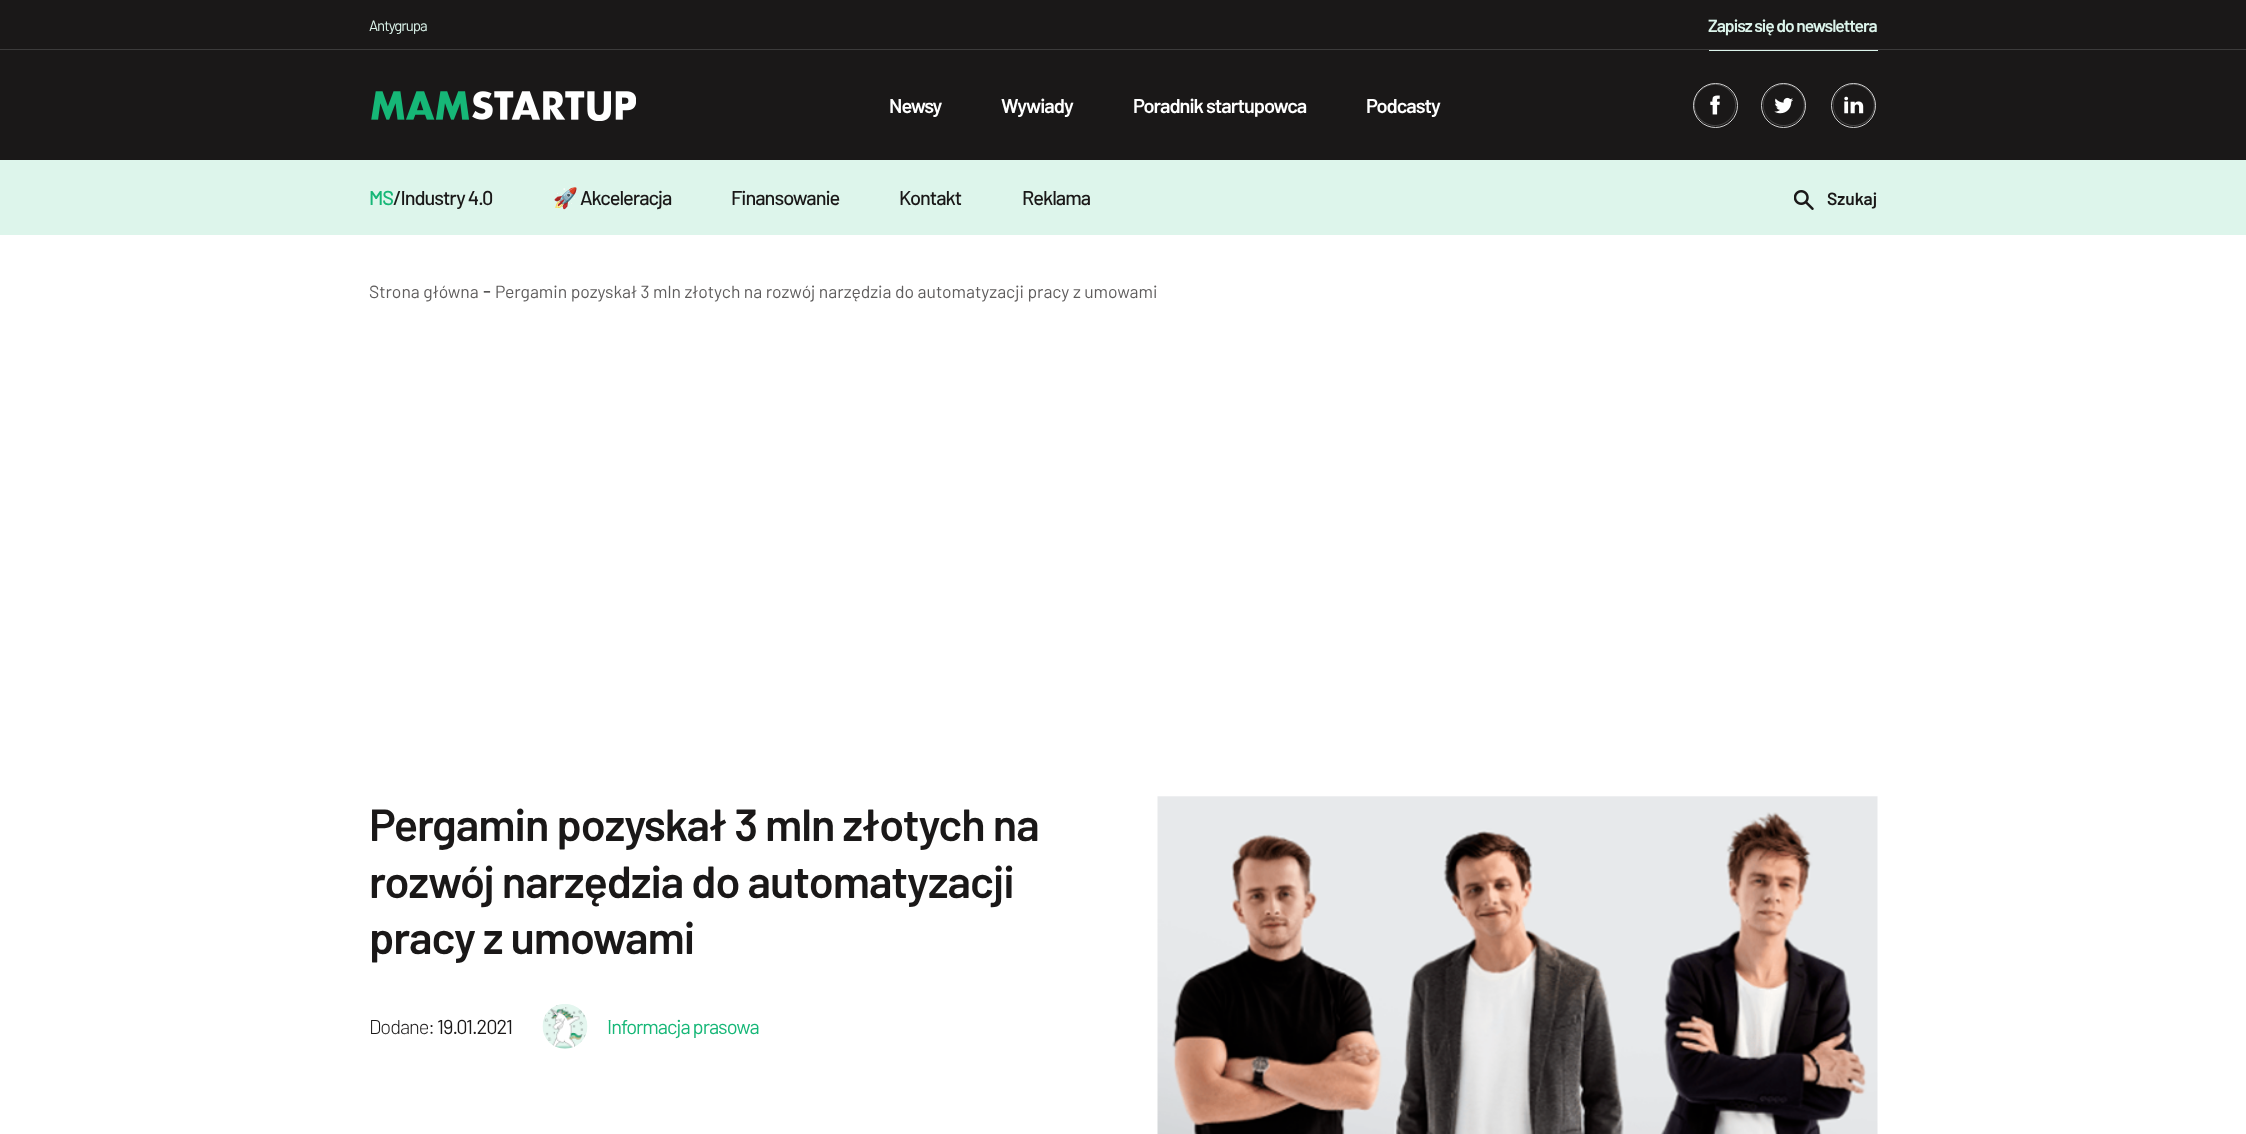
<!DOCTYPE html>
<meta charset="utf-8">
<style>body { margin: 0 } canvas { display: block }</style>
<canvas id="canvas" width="2246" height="1134"></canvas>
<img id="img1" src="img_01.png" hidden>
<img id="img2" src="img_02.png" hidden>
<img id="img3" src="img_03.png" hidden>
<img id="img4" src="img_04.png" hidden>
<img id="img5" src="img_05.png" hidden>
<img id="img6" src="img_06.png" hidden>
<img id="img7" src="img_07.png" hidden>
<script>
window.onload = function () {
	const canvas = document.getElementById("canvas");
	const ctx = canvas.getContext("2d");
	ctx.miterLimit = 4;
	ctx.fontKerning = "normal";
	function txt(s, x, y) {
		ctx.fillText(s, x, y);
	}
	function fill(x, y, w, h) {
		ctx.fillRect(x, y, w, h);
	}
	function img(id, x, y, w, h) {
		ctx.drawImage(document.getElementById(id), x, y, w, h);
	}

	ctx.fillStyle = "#FFFFFF";
	fill(0, 0, 2246, 1134);
	ctx.fillStyle = "#1A1818";
	fill(0, 0, 2246, 160);
	ctx.fillStyle = "#DCF4EB";
	fill(1709, 50, 169, 1);
	ctx.fillStyle = "#3C3B3B";
	fill(0, 49, 2246, 1);
	img("img1", 371, 91, 265, 30);
	ctx.beginPath();
	ctx.arc(1715.5, 105.5, 22, 0, Math.PI * 2);
	ctx.strokeStyle = "#D1D1D1";
	ctx.stroke();
	img("img2", 1694, 84, 42, 42);
	ctx.beginPath();
	ctx.arc(1783.5, 105.5, 22, 0, Math.PI * 2);
	ctx.stroke();
	img("img3", 1763, 84, 42, 42);
	ctx.beginPath();
	ctx.arc(1853.5, 105.5, 22, 0, Math.PI * 2);
	ctx.stroke();
	img("img4", 1833, 84, 42, 42);
	ctx.fillStyle = "#DDF5EB";
	fill(0, 160, 2246, 75);
	img("img5", 1794, 190, 20, 20);
	img("img6", 542, 1004, 46, 45);
	img("img7", 1157, 796, 721, 338);
	ctx.letterSpacing = "-1px";
	ctx.font = "15px Barlow";
	ctx.fillStyle = "#DCF4EB";
	txt("Antygrupa", 369, 31);
	ctx.font = "600 17.5px Barlow";
	txt("Zapisz się do newslettera", 1708, 32);
	ctx.font = "600 20px Barlow";
	ctx.fillStyle = "#FFFFFF";
	txt("Newsy", 889, 113);
	txt("Wywiady", 1001, 113);
	txt("Poradnik startupowca", 1133, 113);
	txt("Podcasty", 1366, 113);
	ctx.font = "500 20px Barlow";
	ctx.fillStyle = "#16B777";
	txt("MS", 369, 205);
	ctx.fillStyle = "#1A1818";
	txt("/Industry 4.0", 393, 205);
	ctx.font = "20px Noto Color Emoji";
	txt("🚀", 553, 205);
	ctx.font = "500 20px Barlow";
	txt("Akceleracja", 580, 205);
	txt("Finansowanie", 731, 205);
	txt("Kontakt", 899, 205);
	txt("Reklama", 1022, 205);
	ctx.letterSpacing = "0px";
	ctx.font = "600 17.5px Barlow";
	txt("Szukaj", 1827, 205);
	ctx.font = "17.5px Barlow";
	ctx.fillStyle = "#5F5D5D";
	txt("Strona główna", 369, 298);
	ctx.font = "20px Barlow";
	ctx.fillStyle = "#1A1818";
	txt("-", 483, 298);
	ctx.font = "17.5px Barlow";
	ctx.fillStyle = "#5F5D5D";
	txt("Pergamin pozyskał 3 mln złotych na rozwój narzędzia do automatyzacji pracy z umowami", 495, 298);
	ctx.letterSpacing = "-1px";
	ctx.font = "600 45px Barlow";
	ctx.fillStyle = "#1A1818";
	txt("Pergamin pozyskał 3 mln złotych na", 369, 841);
	txt("rozwój narzędzia do automatyzacji", 369, 898);
	txt("pracy z umowami", 369, 954);
	ctx.font = "300 20px Barlow";
	txt("Dodane:", 369, 1034);
	ctx.font = "20px Barlow";
	txt("19.01.2021", 437, 1034);
	ctx.fillStyle = "#16B777";
	txt("Informacja prasowa", 607, 1034);
};
</script>
